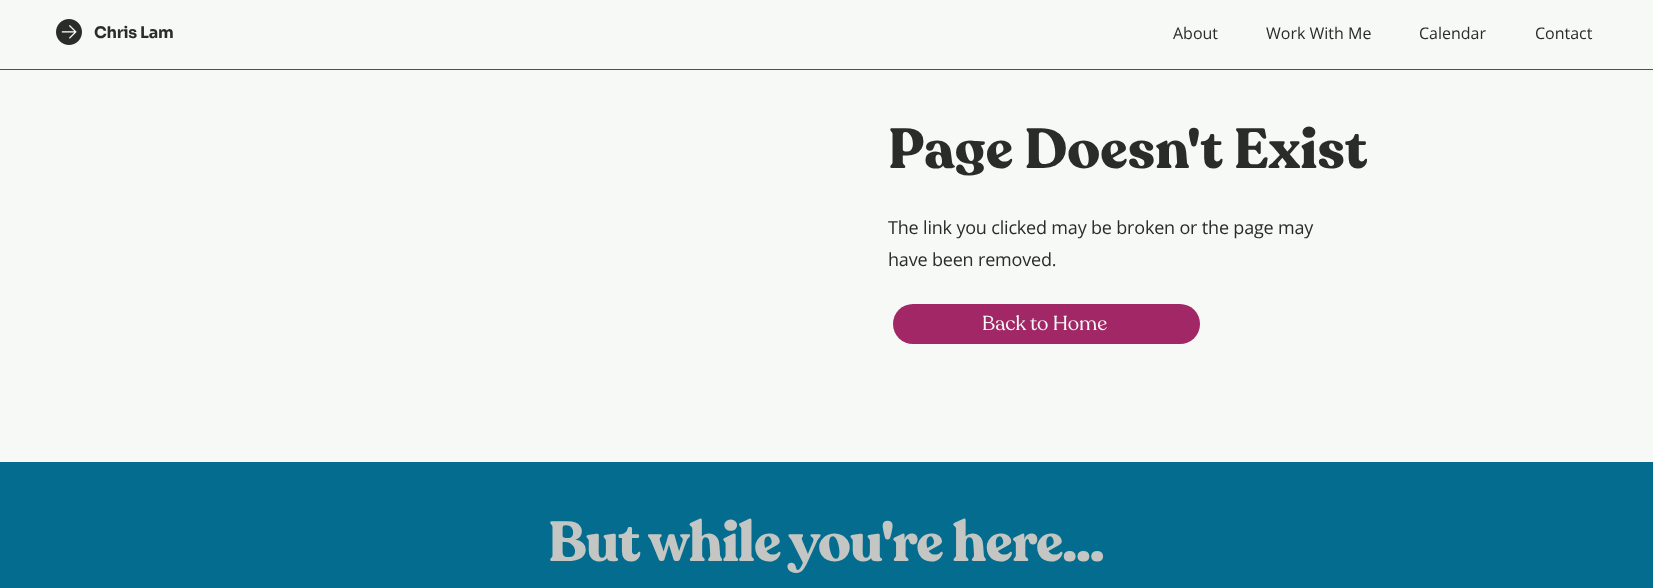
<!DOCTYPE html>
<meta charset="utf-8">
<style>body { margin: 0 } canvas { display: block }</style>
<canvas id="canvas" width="1653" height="588"></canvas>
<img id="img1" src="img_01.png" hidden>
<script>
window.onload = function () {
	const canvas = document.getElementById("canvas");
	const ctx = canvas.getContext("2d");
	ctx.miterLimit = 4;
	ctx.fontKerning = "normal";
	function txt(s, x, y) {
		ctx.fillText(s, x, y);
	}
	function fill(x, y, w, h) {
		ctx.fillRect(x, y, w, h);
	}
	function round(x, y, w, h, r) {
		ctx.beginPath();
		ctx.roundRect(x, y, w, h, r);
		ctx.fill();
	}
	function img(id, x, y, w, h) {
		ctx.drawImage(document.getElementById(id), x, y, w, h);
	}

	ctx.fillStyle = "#F6F9F5";
	fill(0, 0, 1653, 588);
	img("img1", 56, 19, 26, 26);
	ctx.fillStyle = "#046C8E";
	fill(0, 69, 1653, 1);
	ctx.fillStyle = "#A12767";
	round(893, 304, 307, 40, 20);
	ctx.fillStyle = "#046C8E";
	fill(0, 462, 1653, 126);
	ctx.letterSpacing = "-0.25px";
	ctx.font = "bold 16px Sora";
	ctx.fillStyle = "#2A2C29";
	txt("Chris Lam", 94, 38);
	ctx.letterSpacing = "0px";
	ctx.font = "16px Open Sans";
	txt("About", 1173, 39);
	txt("Work With Me", 1266, 39);
	txt("Calendar", 1419, 39);
	txt("Contact", 1535, 39);
	ctx.font = "bold 56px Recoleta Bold";
	txt("Page Doesn't Exist", 888, 168);
	ctx.letterSpacing = "-0.18px";
	ctx.font = "18px Open Sans";
	txt("The link you clicked may be broken or the page may", 888, 234);
	txt("have been removed.", 888, 266);
	ctx.letterSpacing = "0px";
	ctx.font = "20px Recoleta";
	ctx.fillStyle = "#F6F9F5";
	txt("Back to Home", 982, 330);
	ctx.letterSpacing = "-1.1px";
	ctx.font = "bold 56px Recoleta Bold";
	ctx.fillStyle = "#C3C6C2";
	txt("But while you're here...", 548, 561);
};
</script>
